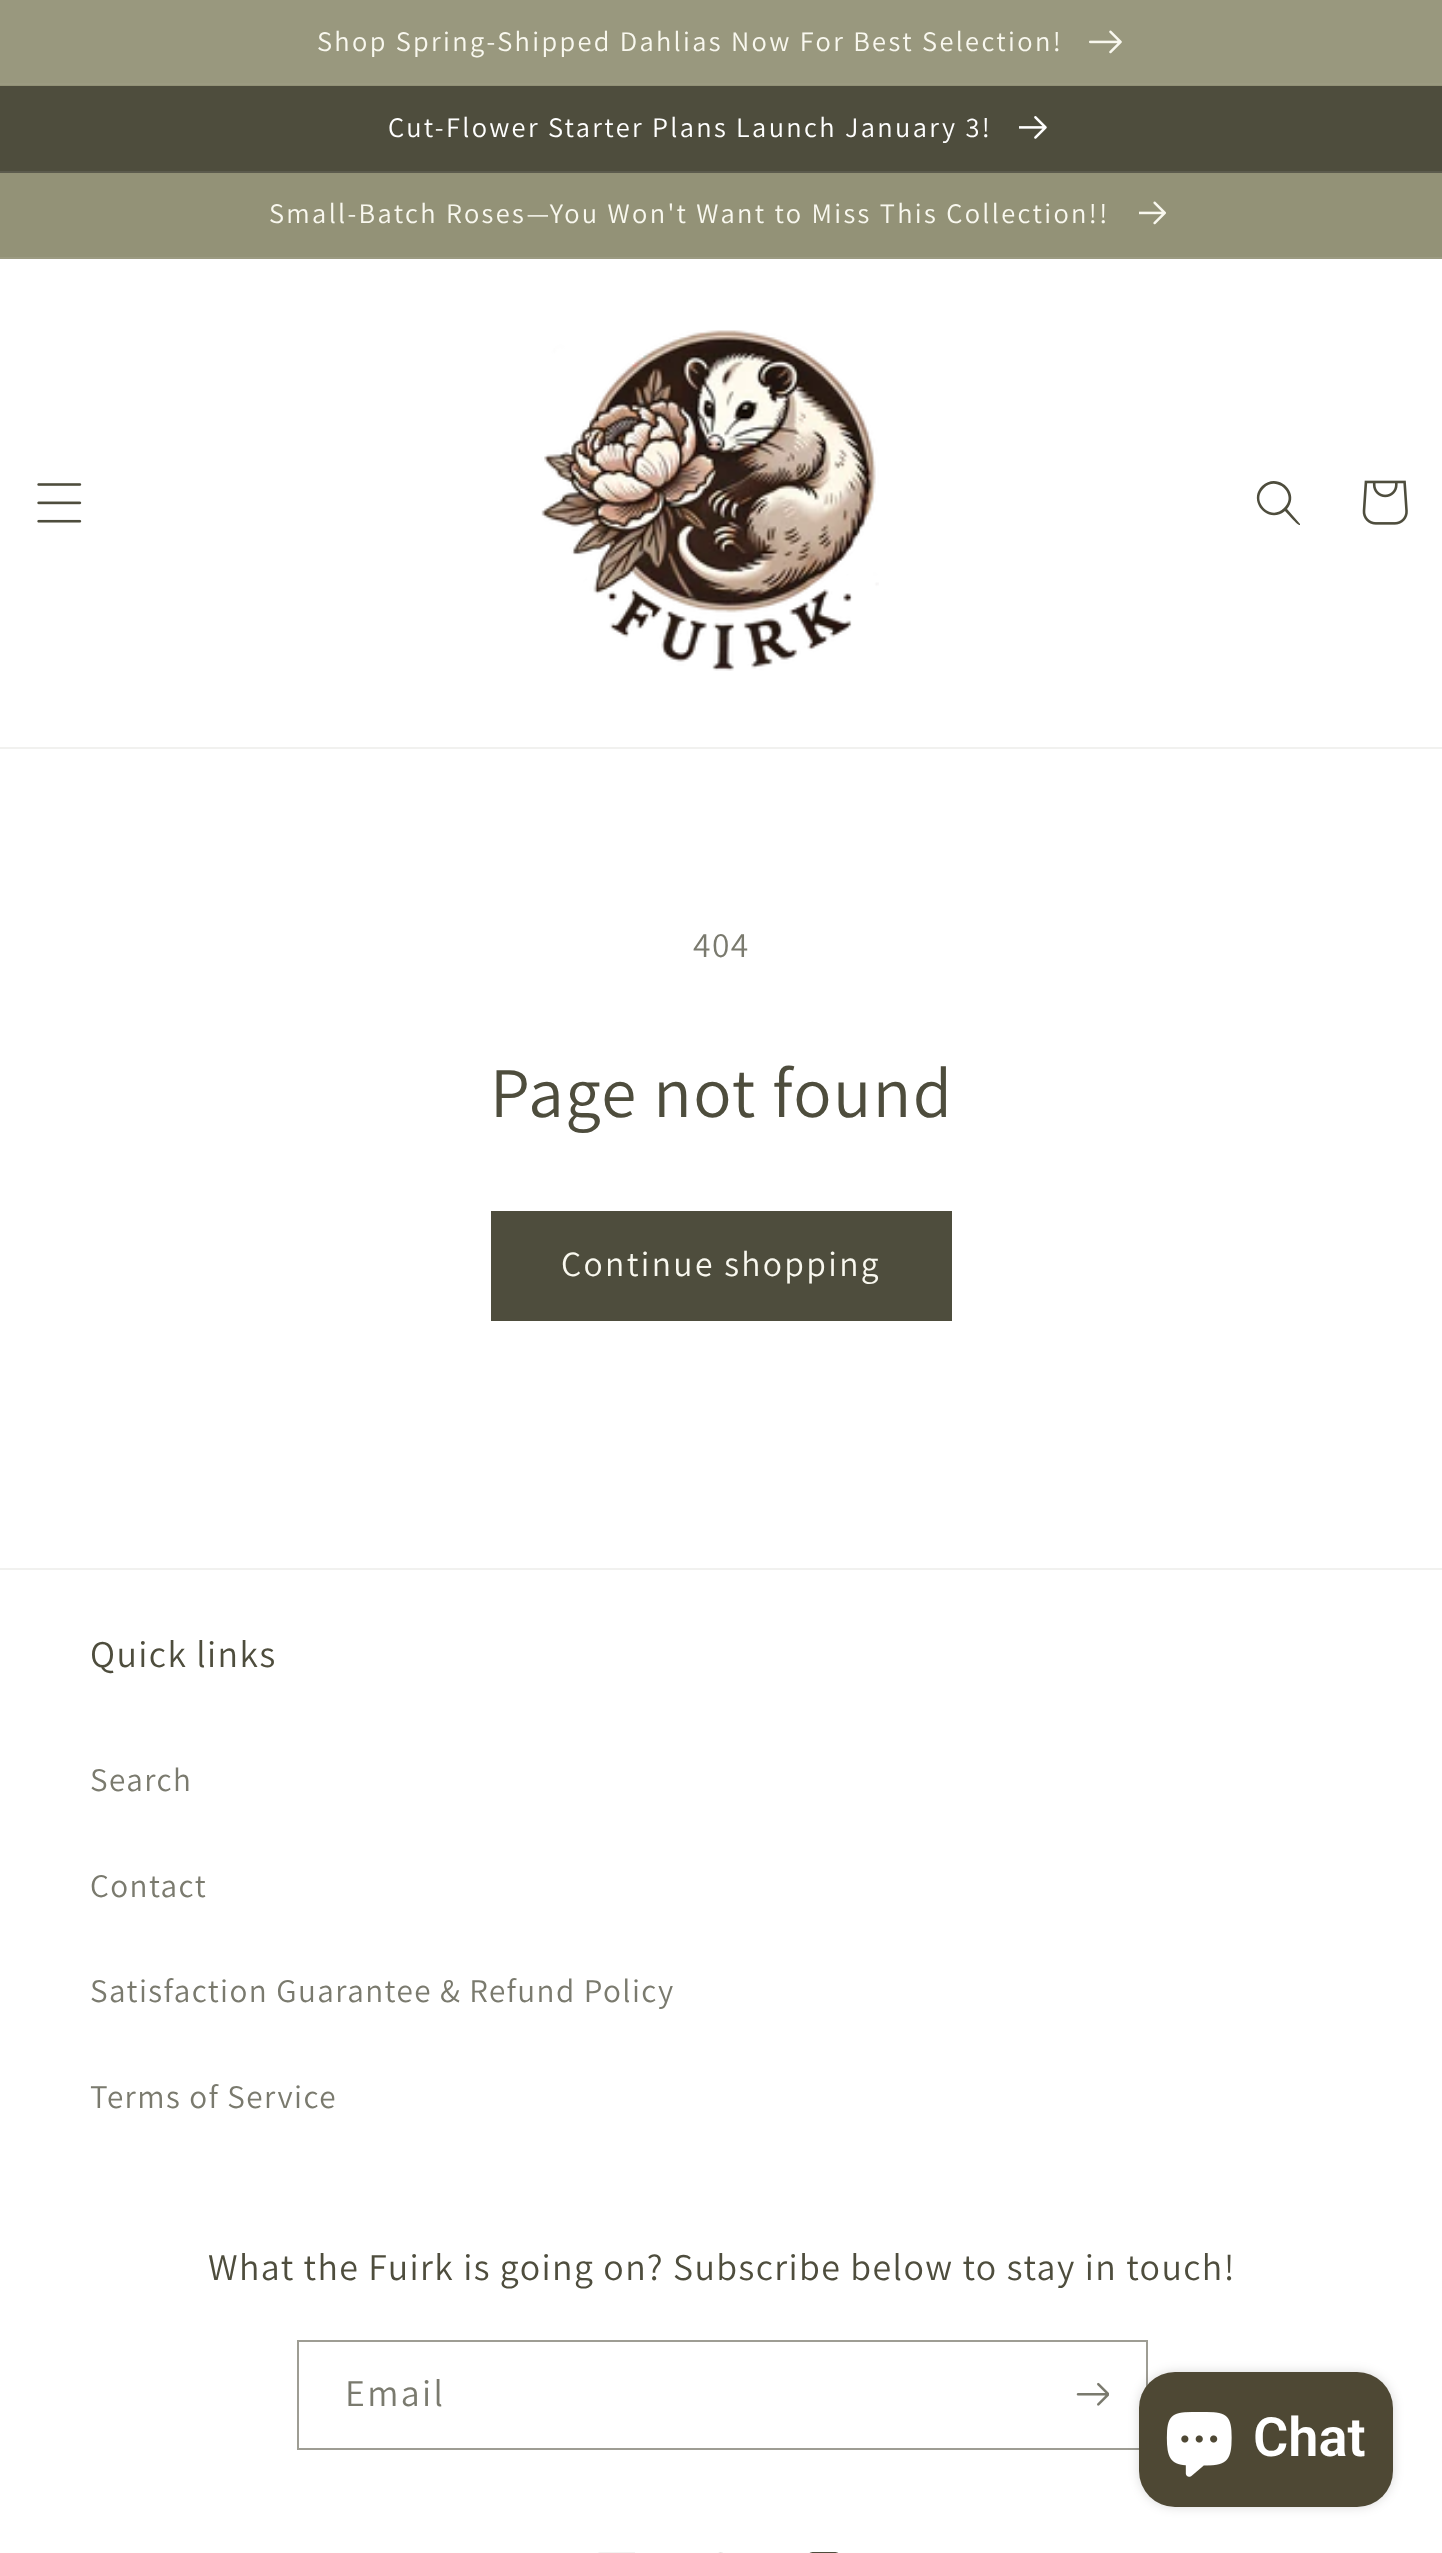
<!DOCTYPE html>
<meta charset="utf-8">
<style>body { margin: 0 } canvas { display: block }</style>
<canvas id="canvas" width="1442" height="2553"></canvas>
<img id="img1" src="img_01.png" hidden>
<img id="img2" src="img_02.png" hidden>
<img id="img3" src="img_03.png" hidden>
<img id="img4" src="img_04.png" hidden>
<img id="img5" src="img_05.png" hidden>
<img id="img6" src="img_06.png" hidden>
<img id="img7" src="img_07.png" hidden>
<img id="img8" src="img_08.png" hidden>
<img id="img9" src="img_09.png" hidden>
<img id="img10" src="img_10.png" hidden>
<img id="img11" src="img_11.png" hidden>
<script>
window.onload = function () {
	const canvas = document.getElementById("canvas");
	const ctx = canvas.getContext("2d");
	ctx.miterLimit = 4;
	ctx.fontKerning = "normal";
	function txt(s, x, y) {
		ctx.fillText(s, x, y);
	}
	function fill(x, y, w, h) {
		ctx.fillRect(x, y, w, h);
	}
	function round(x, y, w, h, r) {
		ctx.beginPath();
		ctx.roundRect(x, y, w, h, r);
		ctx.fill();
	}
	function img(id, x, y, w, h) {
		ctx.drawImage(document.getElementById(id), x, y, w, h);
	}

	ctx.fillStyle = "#FFFFFF";
	fill(0, 0, 1442, 2553);
	ctx.fillStyle = "#939277";
	fill(0, 85, 1442, 1);
	ctx.fillStyle = "#9B9A81";
	fill(0, 83, 1442, 2);
	ctx.fillStyle = "#99987E";
	fill(0, 0, 1442, 83);
	img("img1", 1089, 30, 33, 24);
	ctx.fillStyle = "#4E4D3D";
	fill(0, 86, 1442, 85);
	ctx.fillStyle = "#5C5B4D";
	fill(0, 171, 1442, 2);
	img("img2", 1019, 116, 28, 23);
	ctx.fillStyle = "#939277";
	fill(0, 173, 1442, 84);
	ctx.fillStyle = "#9B9A81";
	fill(0, 257, 1442, 2);
	img("img3", 1139, 201, 27, 24);
	ctx.fillStyle = "#F1F1EF";
	fill(0, 747, 1442, 2);
	img("img4", 37, 483, 45, 40);
	img("img5", 541, 330, 338, 341);
	ctx.fillStyle = "#4E4D3D";
	ctx.beginPath();
	ctx.moveTo(1284, 508);
	ctx.bezierCurveTo(1271, 522, 1250, 501, 1264, 488);
	ctx.bezierCurveTo(1277, 475, 1298, 495, 1284, 508);
	ctx.closePath();
	ctx.moveTo(1285, 511);
	ctx.bezierCurveTo(1268, 525, 1247, 501, 1262, 486);
	ctx.bezierCurveTo(1278, 471, 1301, 493, 1287, 509);
	ctx.lineTo(1300, 524);
	ctx.lineTo(1300, 525);
	ctx.bezierCurveTo(1298, 526, 1287, 513, 1285, 511);
	ctx.closePath();
	ctx.fill("evenodd");
	img("img6", 1362, 480, 46, 45);
	fill(491, 1211, 461, 110);
	ctx.fillStyle = "#F1F1EF";
	fill(0, 1568, 1442, 2);
	ctx.strokeStyle = "#9E9D94";
	ctx.lineWidth = 2;
	ctx.strokeRect(298, 2341, 849, 108);
	img("img7", 1076, 2382, 33, 24);
	img("img8", 598, 2552, 37, 1);
	img("img9", 718, 2552, 5, 1);
	img("img10", 809, 2552, 30, 1);
	ctx.fillStyle = "rgba(0, 0, 0, 0.15)";
	ctx.filter = "blur(5.5px)";
	ctx.beginPath();
	ctx.roundRect(1139, 2372, 254, 135, 36);
	ctx.fill();
	ctx.filter = "none";
	ctx.fillStyle = "#4E4834";
	round(1139, 2372, 254, 135, 36);
	img("img11", 1166, 2412, 66, 65);
	ctx.letterSpacing = "2.35px";
	ctx.font = "28.35px Assistant";
	ctx.fillStyle = "#F9F8EF";
	txt("Shop Spring-Shipped Dahlias Now For Best Selection!", 317, 51);
	ctx.fillStyle = "#FFFFFF";
	txt("Cut-Flower Starter Plans Launch January 3!", 388, 137);
	ctx.fillStyle = "#F9F8EF";
	txt("Small-Batch Roses—You Won't Want to Miss This Collection!!", 269, 223);
	ctx.letterSpacing = "1.42px";
	ctx.font = "35.5px Assistant";
	ctx.fillStyle = "#7A7A6E";
	txt("404", 693, 957);
	ctx.font = "71px Assistant";
	ctx.fillStyle = "#4E4D3D";
	txt("Page not found", 490, 1117);
	ctx.letterSpacing = "2.35px";
	ctx.font = "35.5px Assistant";
	ctx.fillStyle = "#F9F8EF";
	txt("Continue shopping", 561, 1276);
	ctx.letterSpacing = "1.42px";
	ctx.font = "37.8px Assistant";
	ctx.fillStyle = "#4E4D3D";
	txt("Quick links", 90, 1667);
	ctx.font = "33.1px Assistant";
	ctx.fillStyle = "#7A7A6E";
	txt("Search", 90, 1791);
	txt("Contact", 90, 1897);
	txt("Satisfaction Guarantee & Refund Policy", 90, 2002);
	txt("Terms of Service", 90, 2108);
	ctx.font = "37.8px Assistant";
	ctx.fillStyle = "#4E4D3D";
	txt("What the Fuirk is going on? Subscribe below to stay in touch!", 208, 2280);
	ctx.letterSpacing = "2.35px";
	ctx.fillStyle = "#7A7A6E";
	txt("Email", 345, 2406);
	ctx.letterSpacing = "0px";
	ctx.font = "600 54px Roboto";
	ctx.fillStyle = "#FFFFFF";
	txt("Chat", 1253, 2456);
};
</script>
